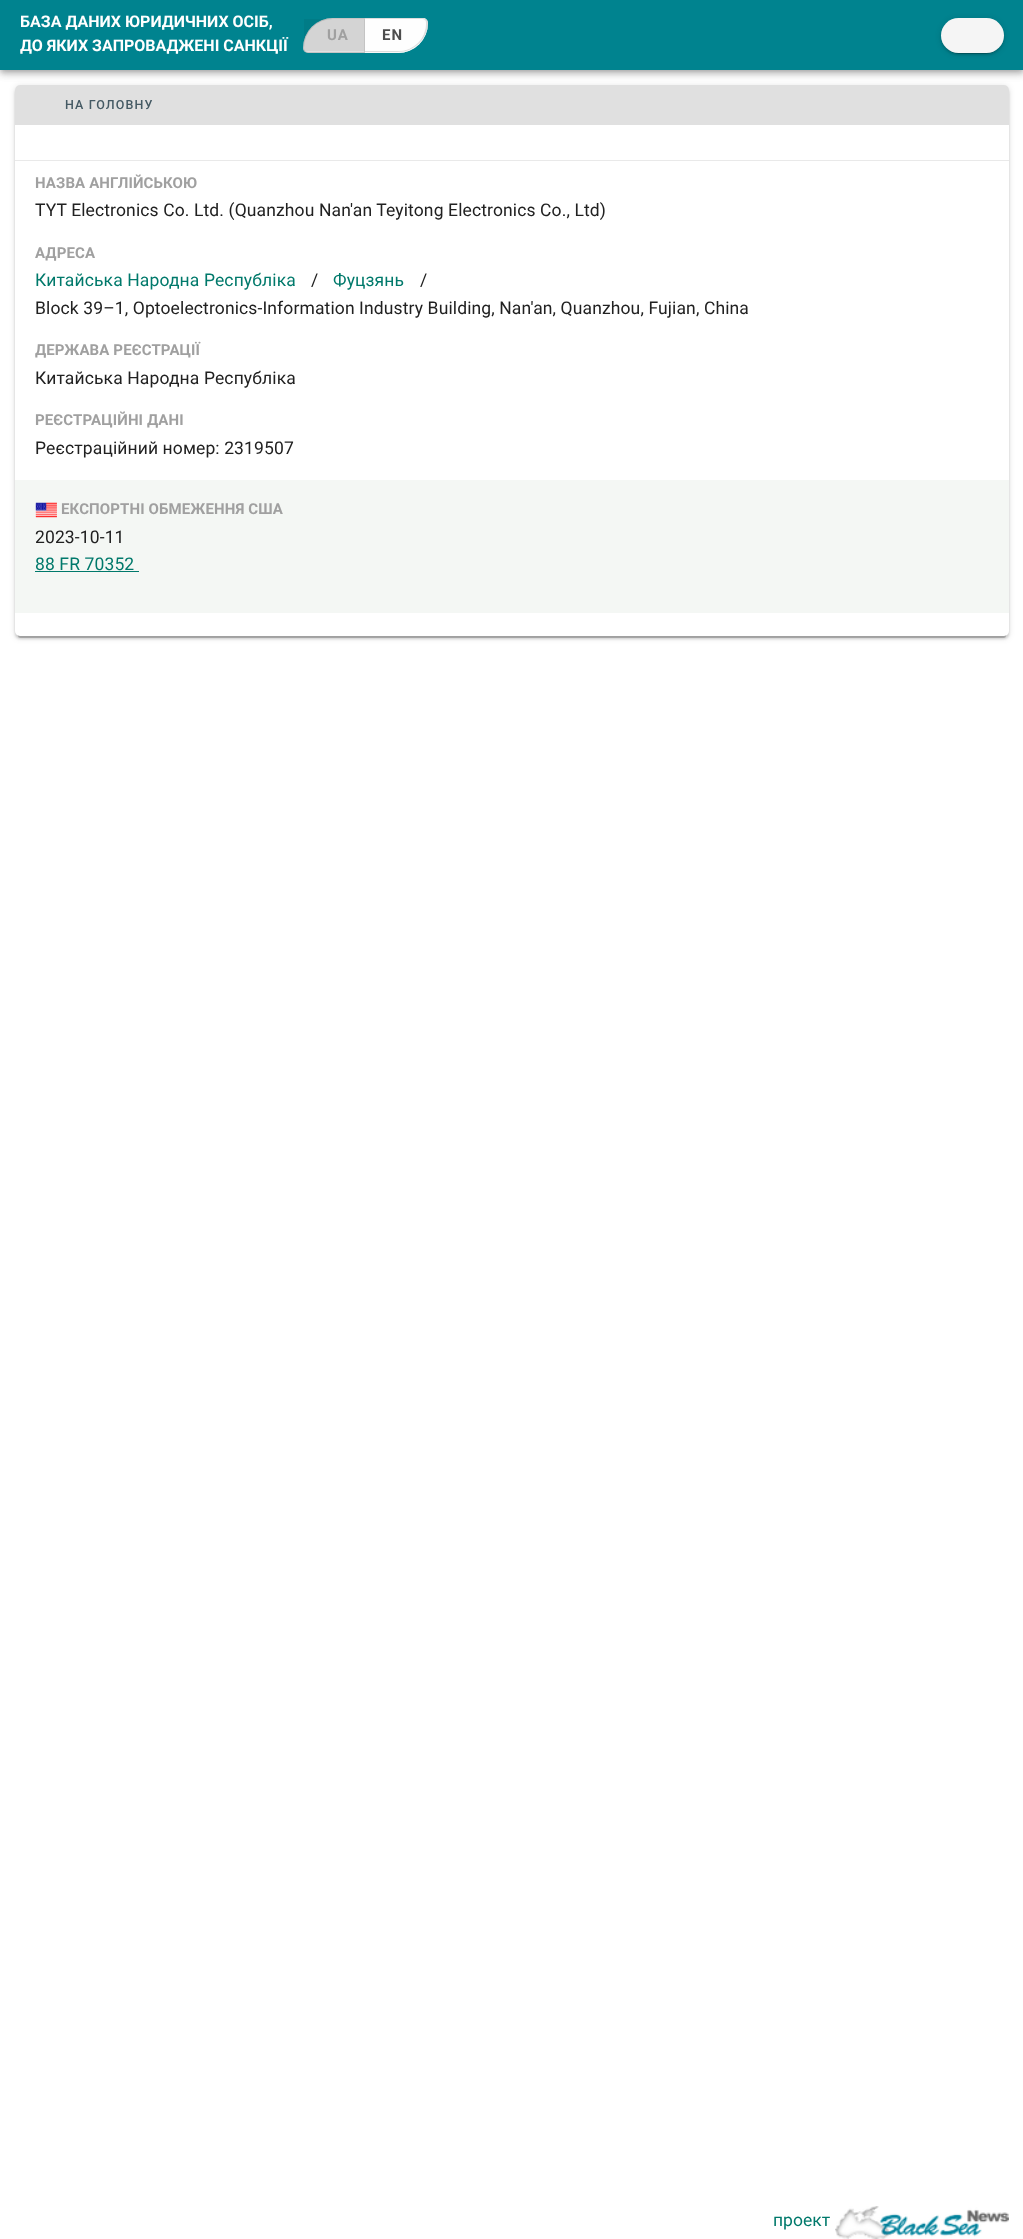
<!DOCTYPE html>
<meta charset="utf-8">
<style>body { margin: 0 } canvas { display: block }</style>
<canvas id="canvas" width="1023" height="2239"></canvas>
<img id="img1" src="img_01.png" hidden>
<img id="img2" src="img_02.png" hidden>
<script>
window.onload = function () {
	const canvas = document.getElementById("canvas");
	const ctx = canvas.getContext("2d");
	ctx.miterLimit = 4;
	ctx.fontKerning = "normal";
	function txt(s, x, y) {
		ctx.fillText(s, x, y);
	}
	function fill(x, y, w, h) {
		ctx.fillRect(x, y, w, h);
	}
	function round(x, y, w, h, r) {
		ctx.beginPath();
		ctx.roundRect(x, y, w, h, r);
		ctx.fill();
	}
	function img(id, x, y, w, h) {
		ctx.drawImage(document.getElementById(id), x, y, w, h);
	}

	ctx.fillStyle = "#FFFFFF";
	fill(0, 0, 1023, 2239);
	ctx.fillStyle = "rgba(0, 0, 0, 0.12)";
	ctx.filter = "blur(3px)";
	ctx.beginPath();
	ctx.roundRect(15, 86, 994, 552, 5);
	ctx.fill();
	ctx.filter = "none";
	ctx.fillStyle = "rgba(0, 0, 0, 0.14)";
	ctx.filter = "blur(1px)";
	ctx.beginPath();
	ctx.roundRect(15, 88, 994, 551, 5);
	ctx.fill();
	ctx.filter = "none";
	ctx.fillStyle = "rgba(0, 0, 0, 0.2)";
	ctx.filter = "blur(0.5px)";
	ctx.beginPath();
	ctx.roundRect(18, 91, 988, 547, 2.5);
	ctx.fill();
	ctx.filter = "none";
	ctx.fillStyle = "#FFFFFF";
	round(15, 85, 994, 551, 5);
	ctx.fillStyle = "#E0E0E0";
	ctx.beginPath();
	ctx.roundRect(15, 85, 994, 40, [5, 5, 0, 0]);
	ctx.fill();
	ctx.fillStyle = "rgba(0, 0, 0, 0.12)";
	ctx.filter = "blur(6px)";
	ctx.beginPath();
	ctx.rect(0, 1, 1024, 70);
	ctx.fill();
	ctx.filter = "none";
	ctx.fillStyle = "rgba(0, 0, 0, 0.14)";
	ctx.filter = "blur(3px)";
	ctx.beginPath();
	ctx.rect(0, 5, 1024, 70);
	ctx.fill();
	ctx.filter = "none";
	ctx.fillStyle = "rgba(0, 0, 0, 0.2)";
	ctx.filter = "blur(2.5px)";
	ctx.beginPath();
	ctx.rect(1, 4, 1022, 67);
	ctx.fill();
	ctx.filter = "none";
	ctx.fillStyle = "#00838F";
	fill(0, 0, 1023, 70);
	ctx.fillStyle = "#FFFFFF";
	ctx.beginPath();
	ctx.roundRect(303, 18, 125, 35, [30, 5, 30, 5]);
	ctx.fill();
	ctx.fillStyle = "rgba(0, 0, 0, 0.12)";
	ctx.beginPath();
	ctx.roundRect(303, 18, 62, 35, [30, 0, 0, 5]);
	ctx.fill();
	ctx.beginPath();
	ctx.roundRect(303.5, 18.5, 61, 34, [29.5, 0, 0, 4.5]);
	ctx.strokeStyle = "rgba(0, 0, 0, 0.12)";
	ctx.stroke();
	ctx.fillStyle = "rgba(0, 0, 0, 0.05)";
	fill(304, 19, 60, 32);
	ctx.fillStyle = "rgba(245, 245, 245, 0.8)";
	ctx.beginPath();
	ctx.roundRect(365, 18, 63, 35, [0, 5, 30, 0]);
	ctx.fill();
	ctx.fillStyle = "rgba(0, 0, 0, 0.1)";
	ctx.beginPath();
	ctx.moveTo(365, 18);
	ctx.lineTo(422, 18);
	ctx.bezierCurveTo(425, 18, 428, 20, 428, 22);
	ctx.bezierCurveTo(428, 39, 414, 52, 398, 52);
	ctx.lineTo(365, 52);
	ctx.closePath();
	ctx.moveTo(365, 19);
	ctx.lineTo(422, 19);
	ctx.bezierCurveTo(425, 19, 426, 20, 426, 22);
	ctx.bezierCurveTo(426, 38, 413, 51, 398, 51);
	ctx.lineTo(365, 51);
	ctx.closePath();
	ctx.fill("evenodd");
	ctx.fillStyle = "rgba(255, 255, 255, 0.87)";
	ctx.beginPath();
	ctx.roundRect(365, 19, 61, 32, [0, 4.85, 27.15, 0]);
	ctx.fill();
	ctx.fillStyle = "rgba(0, 0, 0, 0.12)";
	ctx.filter = "blur(3px)";
	ctx.beginPath();
	ctx.roundRect(941, 19, 63, 35, 17.5);
	ctx.fill();
	ctx.filter = "none";
	ctx.fillStyle = "rgba(0, 0, 0, 0.14)";
	ctx.filter = "blur(1px)";
	ctx.beginPath();
	ctx.roundRect(941, 20, 63, 35, 17.5);
	ctx.fill();
	ctx.filter = "none";
	ctx.fillStyle = "rgba(0, 0, 0, 0.2)";
	ctx.filter = "blur(0.5px)";
	ctx.beginPath();
	ctx.roundRect(944, 24, 57, 30, 15);
	ctx.fill();
	ctx.filter = "none";
	ctx.fillStyle = "#F5F5F5";
	round(941, 18, 63, 35, 17.5);
	ctx.fillStyle = "#E9E9E9";
	fill(15, 160, 994, 1);
	ctx.fillStyle = "#F4F7F4";
	fill(15, 480, 994, 133);
	img("img1", 35, 502, 22, 16);
	ctx.fillStyle = "#00796B";
	fill(35, 571, 104, 1);
	img("img2", 835, 2206, 174, 33);
	ctx.font = "bold 16px Roboto";
	ctx.fillStyle = "#FFFFFF";
	txt("БАЗА ДАНИХ ЮРИДИЧНИХ ОСІБ,", 20, 27);
	txt("ДО ЯКИХ ЗАПРОВАДЖЕНІ САНКЦІЇ", 20, 51);
	ctx.letterSpacing = "1px";
	ctx.font = "bold 15px Roboto";
	ctx.fillStyle = "#A0A0A0";
	txt("UA", 327, 40);
	ctx.fillStyle = "#4D4D4D";
	txt("EN", 382, 40);
	ctx.letterSpacing = "1.1px";
	ctx.font = "500 12.5px Roboto";
	ctx.fillStyle = "#455A64";
	txt("НА ГОЛОВНУ", 65, 109);
	ctx.letterSpacing = "0.12px";
	ctx.font = "bold 15px Roboto";
	ctx.fillStyle = "#A0A0A0";
	txt("НАЗВА АНГЛІЙСЬКОЮ", 35, 188);
	ctx.font = "17.5px Roboto";
	ctx.fillStyle = "#212121";
	txt("TYT Electronics Co. Ltd. (Quanzhou Nan'an Teyitong Electronics Co., Ltd)", 35, 216);
	ctx.font = "bold 15px Roboto";
	ctx.fillStyle = "#A0A0A0";
	txt("АДРЕСА", 35, 258);
	ctx.font = "17.5px Roboto";
	ctx.fillStyle = "#00796B";
	txt("Китайська Народна Республіка", 35, 286);
	ctx.fillStyle = "#212121";
	txt("/", 311, 286);
	ctx.fillStyle = "#00796B";
	txt("Фуцзянь", 333, 286);
	ctx.fillStyle = "#212121";
	txt("/", 420, 286);
	txt("Block 39–1, Optoelectronics-Information Industry Building, Nan'an, Quanzhou, Fujian, China", 35, 314);
	ctx.font = "bold 15px Roboto";
	ctx.fillStyle = "#A0A0A0";
	txt("ДЕРЖАВА РЕЄСТРАЦІЇ", 35, 355);
	ctx.font = "17.5px Roboto";
	ctx.fillStyle = "#212121";
	txt("Китайська Народна Республіка", 35, 384);
	ctx.font = "bold 15px Roboto";
	ctx.fillStyle = "#A0A0A0";
	txt("РЕЄСТРАЦІЙНІ ДАНІ", 35, 425);
	ctx.font = "17.5px Roboto";
	ctx.fillStyle = "#212121";
	txt("Реєстраційний номер: 2319507", 35, 454);
	ctx.font = "bold 15px Roboto";
	ctx.fillStyle = "#A0A0A0";
	txt("ЕКСПОРТНІ ОБМЕЖЕННЯ США", 61, 514);
	ctx.font = "17.5px Roboto";
	ctx.fillStyle = "#212121";
	txt("2023-10-11", 35, 543);
	ctx.fillStyle = "#00796B";
	txt("88 FR 70352", 35, 570);
	ctx.letterSpacing = "0px";
	txt("проект", 773, 2226);
};
</script>
